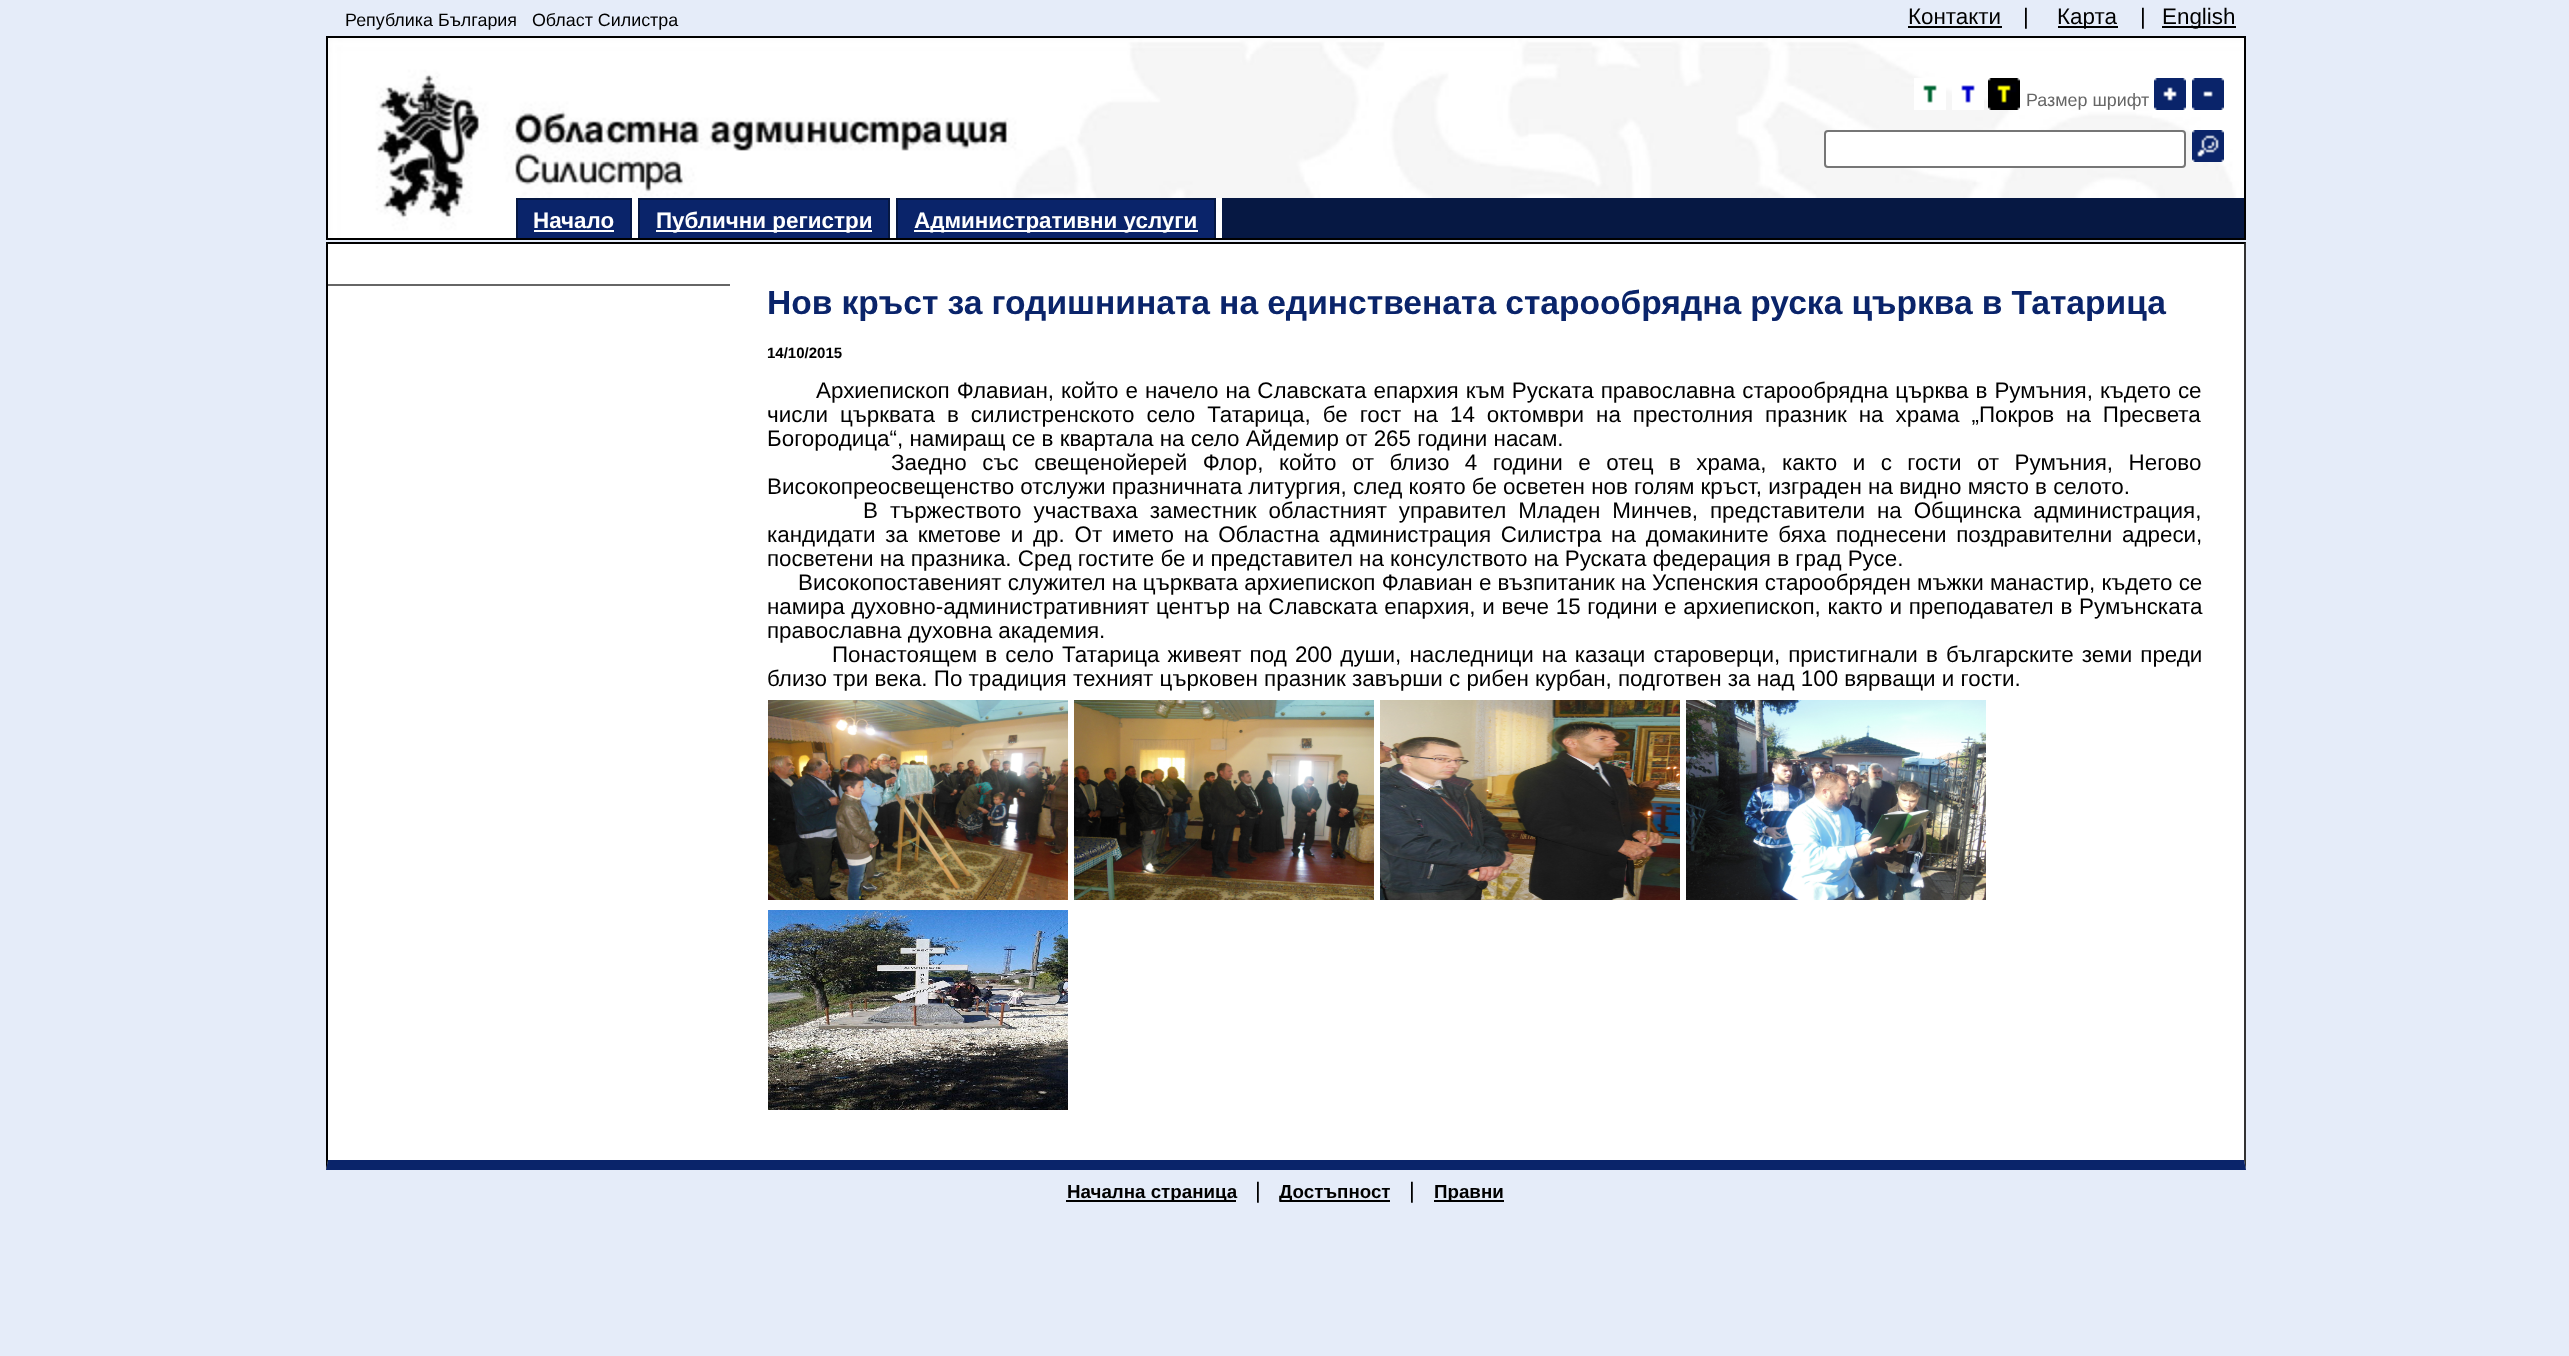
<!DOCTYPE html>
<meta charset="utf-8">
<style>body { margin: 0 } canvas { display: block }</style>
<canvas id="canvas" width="2569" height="1356"></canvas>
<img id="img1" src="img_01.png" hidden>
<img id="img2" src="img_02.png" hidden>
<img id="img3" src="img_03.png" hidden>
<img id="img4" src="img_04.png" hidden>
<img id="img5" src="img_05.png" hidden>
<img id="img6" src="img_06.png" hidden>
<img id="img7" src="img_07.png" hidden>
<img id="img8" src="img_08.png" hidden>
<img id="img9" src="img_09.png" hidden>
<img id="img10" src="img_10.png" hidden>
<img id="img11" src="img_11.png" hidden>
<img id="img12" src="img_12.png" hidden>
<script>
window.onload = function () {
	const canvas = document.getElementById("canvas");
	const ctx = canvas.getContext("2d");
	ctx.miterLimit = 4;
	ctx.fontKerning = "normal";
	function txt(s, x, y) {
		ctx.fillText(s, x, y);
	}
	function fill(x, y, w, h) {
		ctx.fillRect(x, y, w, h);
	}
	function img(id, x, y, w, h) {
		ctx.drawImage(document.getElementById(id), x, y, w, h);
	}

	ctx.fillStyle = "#E5ECF9";
	fill(0, 0, 2569, 1356);
	ctx.fillStyle = "#000000";
	fill(1908, 26, 94, 2);
	fill(2058, 26, 60, 2);
	fill(2162, 26, 74, 2);
	img("img1", 328, 38, 1916, 200);
	ctx.strokeStyle = "#000000";
	ctx.lineWidth = 2;
	ctx.strokeRect(327, 37, 1918, 202);
	ctx.fillStyle = "#006633";
	fill(1923, 85, 14, 18);
	img("img2", 1914, 78, 32, 32);
	img("img3", 1952, 78, 32, 32);
	img("img4", 1988, 78, 32, 32);
	ctx.fillStyle = "#0A246A";
	fill(2154, 78, 32, 32);
	img("img5", 2154, 78, 32, 32);
	fill(2192, 78, 32, 32);
	img("img6", 2192, 78, 32, 32);
	ctx.fillStyle = "#FFFFFF";
	ctx.beginPath();
	ctx.roundRect(1825, 131, 360, 36, 3);
	ctx.fill();
	ctx.strokeStyle = "#767676";
	ctx.stroke();
	ctx.fillStyle = "#0A246A";
	fill(2192, 130, 32, 32);
	img("img7", 2192, 130, 32, 32);
	ctx.fillStyle = "#FFFFFF";
	fill(1010, 198, 212, 10);
	ctx.fillStyle = "#0A246A";
	fill(518, 200, 112, 38);
	ctx.fillStyle = "#061843";
	fill(516, 198, 116, 2);
	fill(630, 198, 2, 40);
	fill(516, 198, 2, 40);
	ctx.fillStyle = "#FFFFFF";
	fill(534, 230, 80, 2);
	ctx.fillStyle = "#0A246A";
	fill(640, 200, 248, 38);
	ctx.fillStyle = "#061843";
	fill(638, 198, 252, 2);
	fill(888, 198, 2, 40);
	fill(638, 198, 2, 40);
	ctx.fillStyle = "#FFFFFF";
	fill(656, 230, 216, 2);
	ctx.fillStyle = "#0A246A";
	fill(898, 200, 316, 38);
	ctx.fillStyle = "#061843";
	fill(896, 198, 320, 2);
	fill(1214, 198, 2, 40);
	fill(896, 198, 2, 40);
	ctx.fillStyle = "#FFFFFF";
	fill(914, 230, 284, 2);
	ctx.fillStyle = "#061843";
	fill(1222, 198, 1022, 40);
	ctx.fillStyle = "#FFFFFF";
	fill(328, 244, 1916, 916);
	ctx.fillStyle = "#000000";
	fill(326, 242, 1920, 2);
	ctx.fillStyle = "#333333";
	ctx.beginPath();
	ctx.moveTo(2246, 242);
	ctx.lineTo(2246, 1170);
	ctx.lineTo(2244, 1160);
	ctx.lineTo(2244, 244);
	ctx.closePath();
	ctx.fill();
	ctx.fillStyle = "#0A246A";
	ctx.beginPath();
	ctx.moveTo(2246, 1170);
	ctx.lineTo(326, 1170);
	ctx.lineTo(328, 1160);
	ctx.lineTo(2244, 1160);
	ctx.closePath();
	ctx.fill();
	ctx.fillStyle = "#000000";
	ctx.beginPath();
	ctx.moveTo(326, 1170);
	ctx.lineTo(326, 242);
	ctx.lineTo(328, 244);
	ctx.lineTo(328, 1160);
	ctx.closePath();
	ctx.fill();
	ctx.fillStyle = "#666666";
	fill(328, 284, 402, 2);
	img("img8", 768, 700, 300, 200);
	img("img9", 1074, 700, 300, 200);
	img("img10", 1380, 700, 300, 200);
	img("img11", 1686, 700, 300, 200);
	img("img12", 768, 910, 300, 200);
	ctx.fillStyle = "#000000";
	fill(1066, 1200, 170, 2);
	fill(1280, 1200, 110, 2);
	fill(1434, 1200, 70, 2);
	ctx.font = "17.9px Liberation Sans";
	txt("Република България   Област Силистра", 345, 26);
	ctx.font = "22.4px Liberation Sans";
	txt("Контакти", 1908, 24);
	txt("|", 2023, 24);
	txt("Карта", 2057, 24);
	txt("|", 2140, 24);
	txt("English", 2162, 24);
	ctx.font = "17.9px Liberation Sans";
	ctx.fillStyle = "#666666";
	txt("Размер шрифт", 2026, 106);
	ctx.font = "bold 22.4px Liberation Sans";
	ctx.fillStyle = "#FFFFFF";
	txt("Начало", 533, 228);
	txt("Публични регистри", 656, 228);
	txt("Административни услуги", 914, 228);
	ctx.wordSpacing = "-0.25px";
	ctx.font = "bold 33.6px Liberation Sans";
	ctx.fillStyle = "#0A246A";
	txt("Нов кръст за годишнината на единствената старообрядна руска църква в Татарица", 767, 314);
	ctx.wordSpacing = "0px";
	ctx.font = "bold 15px Liberation Sans";
	ctx.fillStyle = "#000000";
	txt("14/10/2015", 767, 358);
	ctx.wordSpacing = "0.8px";
	ctx.font = "22.4px Liberation Sans";
	txt("Архиепископ Флавиан, който е начело на Славската епархия към Руската православна старообрядна църква в Румъния, където се", 816, 398);
	ctx.wordSpacing = "5.75px";
	txt("числи църквата в силистренското село Татарица, бе гост на 14 октомври на престолния празник на храма „Покров на Пресвета", 767, 422);
	ctx.wordSpacing = "0px";
	txt("Богородица“, намиращ се в квартала на село Айдемир от 265 години насам.", 767, 446);
	ctx.wordSpacing = "9.25px";
	txt("Заедно със свещенойерей Флор, който от близо 4 години е отец в храма, както и с гости от Румъния, Негово", 891, 470);
	ctx.wordSpacing = "0px";
	txt("Високопреосвещенство отслужи празничната литургия, след която бе осветен нов голям кръст, изграден на видно място в селото.", 767, 494);
	ctx.wordSpacing = "5.75px";
	txt("В тържеството участваха заместник областният управител Младен Минчев, представители на Общинска администрация,", 863, 518);
	ctx.wordSpacing = "3.5px";
	txt("кандидати за кметове и др. От името на Областна администрация Силистра на домакините бяха поднесени поздравителни адреси,", 767, 542);
	ctx.wordSpacing = "0px";
	txt("посветени на празника. Сред гостите бе и представител на консулството на Руската федерация в град Русе.", 767, 566);
	txt("Високопоставеният служител на църквата архиепископ Флавиан е възпитаник на Успенския старообряден мъжки манастир, където се", 798, 590);
	ctx.wordSpacing = "0.5px";
	txt("намира духовно-административният център на Славската епархия, и вече 15 години е архиепископ, както и преподавател в Румънската", 767, 614);
	ctx.wordSpacing = "0px";
	txt("православна духовна академия.", 767, 638);
	ctx.wordSpacing = "1.9px";
	txt("Понастоящем в село Татарица живеят под 200 души, наследници на казаци староверци, пристигнали в българските земи преди", 832, 662);
	ctx.wordSpacing = "0px";
	txt("близо три века. По традиция техният църковен празник завърши с рибен курбан, подготвен за над 100 вярващи и гости.", 767, 686);
	ctx.font = "bold 18.75px Liberation Sans";
	txt("Начална страница", 1067, 1198);
	ctx.font = "22.4px Liberation Sans";
	txt("|", 1255, 1198);
	ctx.font = "bold 18.75px Liberation Sans";
	txt("Достъпност", 1279, 1198);
	ctx.font = "22.4px Liberation Sans";
	txt("|", 1409, 1198);
	ctx.font = "bold 18.75px Liberation Sans";
	txt("Правни", 1434, 1198);
};
</script>
